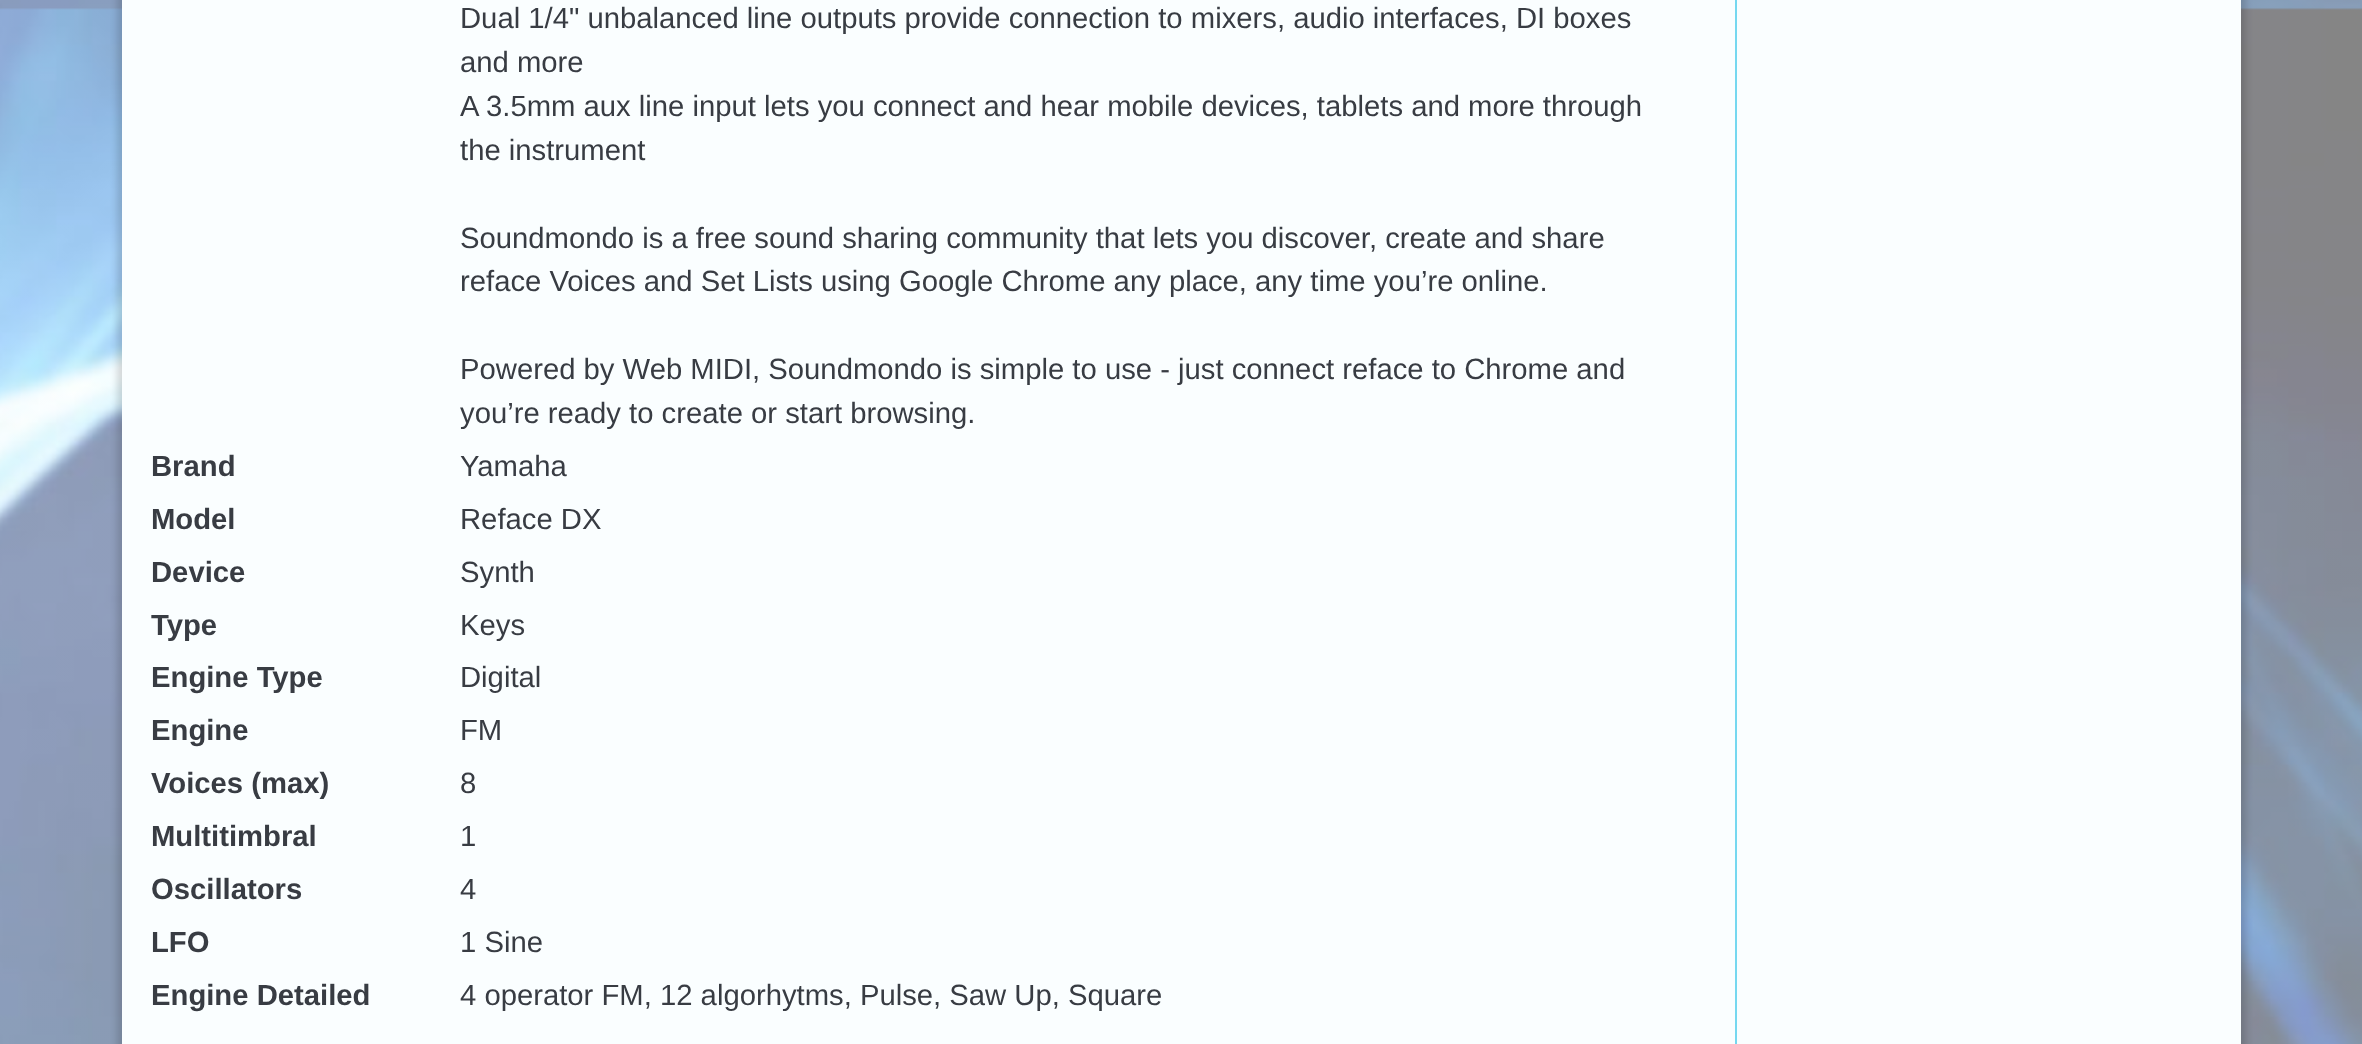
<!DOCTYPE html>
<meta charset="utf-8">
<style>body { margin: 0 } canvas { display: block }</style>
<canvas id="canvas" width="2362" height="1044"></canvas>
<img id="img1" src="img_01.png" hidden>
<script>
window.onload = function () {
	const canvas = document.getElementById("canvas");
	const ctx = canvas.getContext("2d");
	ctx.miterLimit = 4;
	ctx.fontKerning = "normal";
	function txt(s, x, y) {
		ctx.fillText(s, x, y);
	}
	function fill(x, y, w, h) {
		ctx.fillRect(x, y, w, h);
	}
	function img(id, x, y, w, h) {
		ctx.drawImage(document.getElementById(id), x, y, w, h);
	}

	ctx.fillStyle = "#FFFFFF";
	fill(0, 0, 2362, 1044);
	img("img1", 0, 0, 2362, 1044);
	ctx.fillStyle = "rgba(0, 0, 0, 0.15)";
	ctx.filter = "blur(3.5px)";
	ctx.beginPath();
	ctx.roundRect(117, -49, 2129, 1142, 38);
	ctx.fill();
	ctx.filter = "none";
	ctx.fillStyle = "#FAFEFF";
	fill(122, 0, 2119, 1044);
	ctx.fillStyle = "#75D8F0";
	fill(1735, 0, 2, 1044);
	ctx.font = "29.25px Liberation Sans";
	ctx.fillStyle = "#383C43";
	txt("Dual 1/4\" unbalanced line outputs provide connection to mixers, audio interfaces, DI boxes", 460, 28);
	txt("and more", 460, 72);
	txt("A 3.5mm aux line input lets you connect and hear mobile devices, tablets and more through", 460, 116);
	txt("the instrument", 460, 160);
	txt("Soundmondo is a free sound sharing community that lets you discover, create and share", 460, 248);
	txt("reface Voices and Set Lists using Google Chrome any place, any time you’re online.", 460, 291);
	txt("Powered by Web MIDI, Soundmondo is simple to use - just connect reface to Chrome and", 460, 379);
	txt("you’re ready to create or start browsing.", 460, 423);
	ctx.font = "bold 29.25px Liberation Sans";
	txt("Brand", 151, 476);
	ctx.font = "29.25px Liberation Sans";
	txt("Yamaha", 460, 476);
	ctx.font = "bold 29.25px Liberation Sans";
	txt("Model", 151, 529);
	ctx.font = "29.25px Liberation Sans";
	txt("Reface DX", 460, 529);
	ctx.font = "bold 29.25px Liberation Sans";
	txt("Device", 151, 582);
	ctx.font = "29.25px Liberation Sans";
	txt("Synth", 460, 582);
	ctx.font = "bold 29.25px Liberation Sans";
	txt("Type", 151, 635);
	ctx.font = "29.25px Liberation Sans";
	txt("Keys", 460, 635);
	ctx.font = "bold 29.25px Liberation Sans";
	txt("Engine Type", 151, 687);
	ctx.font = "29.25px Liberation Sans";
	txt("Digital", 460, 687);
	ctx.font = "bold 29.25px Liberation Sans";
	txt("Engine", 151, 740);
	ctx.font = "29.25px Liberation Sans";
	txt("FM", 460, 740);
	ctx.font = "bold 29.25px Liberation Sans";
	txt("Voices (max)", 151, 793);
	ctx.font = "29.25px Liberation Sans";
	txt("8", 460, 793);
	ctx.font = "bold 29.25px Liberation Sans";
	txt("Multitimbral", 151, 846);
	ctx.font = "29.25px Liberation Sans";
	txt("1", 460, 846);
	ctx.font = "bold 29.25px Liberation Sans";
	txt("Oscillators", 151, 899);
	ctx.font = "29.25px Liberation Sans";
	txt("4", 460, 899);
	ctx.font = "bold 29.25px Liberation Sans";
	txt("LFO", 151, 952);
	ctx.font = "29.25px Liberation Sans";
	txt("1 Sine", 460, 952);
	ctx.font = "bold 29.25px Liberation Sans";
	txt("Engine Detailed", 151, 1005);
	ctx.font = "29.25px Liberation Sans";
	txt("4 operator FM, 12 algorhytms, Pulse, Saw Up, Square", 460, 1005);
};
</script>
